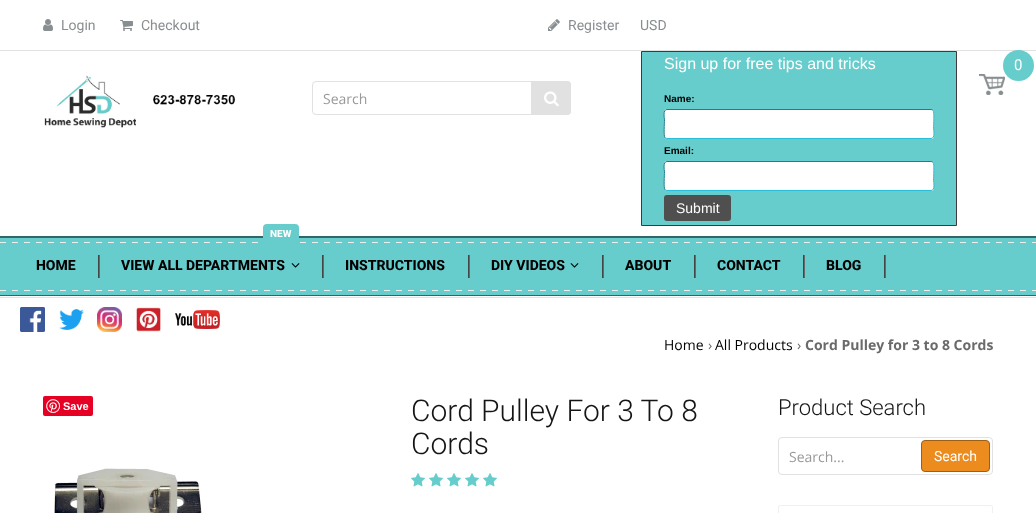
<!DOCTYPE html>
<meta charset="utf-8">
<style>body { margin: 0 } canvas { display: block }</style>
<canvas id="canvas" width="1036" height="513"></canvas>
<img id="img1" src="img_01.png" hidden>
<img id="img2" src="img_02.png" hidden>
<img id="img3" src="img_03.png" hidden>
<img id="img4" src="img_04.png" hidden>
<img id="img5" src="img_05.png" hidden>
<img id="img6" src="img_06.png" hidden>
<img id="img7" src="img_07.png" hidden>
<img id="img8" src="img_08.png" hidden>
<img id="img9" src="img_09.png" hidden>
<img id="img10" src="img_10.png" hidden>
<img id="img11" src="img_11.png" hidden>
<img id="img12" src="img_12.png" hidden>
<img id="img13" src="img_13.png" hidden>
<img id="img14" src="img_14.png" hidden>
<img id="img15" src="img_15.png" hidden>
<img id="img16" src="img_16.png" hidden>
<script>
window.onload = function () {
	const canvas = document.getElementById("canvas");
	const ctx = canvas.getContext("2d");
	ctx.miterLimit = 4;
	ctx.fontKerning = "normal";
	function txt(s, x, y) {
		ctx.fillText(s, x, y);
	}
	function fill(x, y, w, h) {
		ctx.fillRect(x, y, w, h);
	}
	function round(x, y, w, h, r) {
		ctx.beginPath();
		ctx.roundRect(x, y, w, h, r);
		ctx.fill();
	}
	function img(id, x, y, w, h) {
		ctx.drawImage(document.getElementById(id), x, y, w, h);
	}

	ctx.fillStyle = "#FFFFFF";
	fill(0, 0, 1036, 513);
	ctx.fillStyle = "#E1E1E1";
	fill(0, 297, 1036, 1);
	fill(0, 50, 1036, 1);
	img("img1", 43, 19, 10, 12);
	img("img2", 120, 20, 13, 11);
	img("img3", 548, 19, 12, 12);
	img("img4", 44, 75, 191, 53);
	ctx.fillStyle = "#66CCCC";
	ctx.beginPath();
	ctx.rect(641.5, 51.5, 315, 174);
	ctx.fill();
	ctx.strokeStyle = "#3D393D";
	ctx.stroke();
	ctx.fillStyle = "#FFFFFF";
	round(664, 109, 270, 30, 3);
	ctx.beginPath();
	ctx.moveTo(933, 110);
	ctx.bezierCurveTo(934.5, 112, 933.5, 125, 933.5, 128);
	ctx.bezierCurveTo(933.5, 129.5, 935.5, 138.5, 931, 138.5);
	ctx.lineTo(667, 138.5);
	ctx.lineTo(665, 138);
	ctx.strokeStyle = "#29BFD9";
	ctx.stroke();
	ctx.beginPath();
	ctx.moveTo(665, 138);
	ctx.bezierCurveTo(663.5, 136, 664.5, 123, 664.5, 120);
	ctx.bezierCurveTo(664.5, 118.5, 662.5, 109.5, 667, 109.5);
	ctx.lineTo(931, 109.5);
	ctx.lineTo(933, 110);
	ctx.strokeStyle = "#1B7F91";
	ctx.stroke();
	round(664, 161, 270, 30, 3);
	ctx.beginPath();
	ctx.moveTo(933, 162);
	ctx.bezierCurveTo(934.5, 164, 933.5, 177, 933.5, 180);
	ctx.bezierCurveTo(933.5, 181.5, 935.5, 190.5, 931, 190.5);
	ctx.lineTo(667, 190.5);
	ctx.lineTo(665, 190);
	ctx.strokeStyle = "#29BFD9";
	ctx.stroke();
	ctx.beginPath();
	ctx.moveTo(665, 190);
	ctx.bezierCurveTo(663.5, 188, 664.5, 175, 664.5, 172);
	ctx.bezierCurveTo(664.5, 170.5, 662.5, 161.5, 667, 161.5);
	ctx.lineTo(931, 161.5);
	ctx.lineTo(933, 162);
	ctx.strokeStyle = "#1B7F91";
	ctx.stroke();
	ctx.fillStyle = "#4F4F4F";
	round(664, 195, 67, 26, 3);
	img("img5", 979, 74, 26, 21);
	ctx.fillStyle = "#66CCCC";
	ctx.beginPath();
	ctx.arc(1018.5, 65.5, 15.5, 0, Math.PI * 2);
	ctx.fill();
	ctx.beginPath();
	ctx.roundRect(312.5, 81.5, 258, 33, 3.5);
	ctx.strokeStyle = "#E1E1E1";
	ctx.stroke();
	ctx.fillStyle = "#E1E1E1";
	ctx.beginPath();
	ctx.roundRect(531, 81, 40, 34, [0, 4, 4, 0]);
	ctx.fill();
	img("img6", 544, 91, 15, 16);
	img("img7", 0, 236, 1036, 60);
	ctx.fillStyle = "#454545";
	fill(98, 255, 1, 23);
	ctx.fillStyle = "#676767";
	fill(99, 255, 1, 23);
	ctx.fillStyle = "#66CCCC";
	round(263, 224, 36, 20, 4);
	img("img8", 291, 263, 9, 5);
	ctx.fillStyle = "#454545";
	fill(322, 255, 1, 23);
	ctx.fillStyle = "#676767";
	fill(323, 255, 1, 23);
	ctx.fillStyle = "#454545";
	fill(468, 255, 1, 23);
	ctx.fillStyle = "#676767";
	fill(469, 255, 1, 23);
	img("img8", 570, 263, 9, 5);
	ctx.fillStyle = "#454545";
	fill(602, 255, 1, 23);
	ctx.fillStyle = "#676767";
	fill(603, 255, 1, 23);
	ctx.fillStyle = "#454545";
	fill(694, 255, 1, 23);
	ctx.fillStyle = "#676767";
	fill(695, 255, 1, 23);
	ctx.fillStyle = "#454545";
	fill(803, 255, 1, 23);
	ctx.fillStyle = "#676767";
	fill(804, 255, 1, 23);
	ctx.fillStyle = "#454545";
	fill(884, 255, 1, 23);
	ctx.fillStyle = "#676767";
	fill(885, 255, 1, 23);
	img("img9", 20, 307, 25, 25);
	img("img10", 59, 309, 25, 21);
	img("img11", 97, 307, 25, 25);
	img("img12", 136, 307, 25, 25);
	img("img13", 175, 310, 45, 19);
	ctx.fillStyle = "#E60023";
	round(43, 396, 50, 20, 2);
	img("img14", 46, 399, 14, 14);
	img("img15", 54, 468, 148, 45);
	img("img16", 411, 473, 14, 14);
	img("img16", 429, 473, 14, 14);
	img("img16", 447, 473, 14, 14);
	img("img16", 465, 473, 14, 14);
	img("img16", 483, 473, 14, 14);
	ctx.beginPath();
	ctx.roundRect(778.5, 437.5, 214, 37, 3.5);
	ctx.stroke();
	ctx.fillStyle = "#EC8C1E";
	ctx.beginPath();
	ctx.roundRect(921.5, 440.5, 68, 31, 3.5);
	ctx.fill();
	ctx.strokeStyle = "#9E5E14";
	ctx.stroke();
	ctx.beginPath();
	ctx.roundRect(778.5, 505.5, 214, 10, 1.5);
	ctx.strokeStyle = "#F0F0F0";
	ctx.stroke();
	ctx.font = "14px Roboto";
	ctx.fillStyle = "#898E91";
	txt("Login", 61, 30);
	txt("Checkout", 141, 30);
	txt("Register", 568, 30);
	txt("USD", 640, 30);
	ctx.font = "16px Liberation Sans";
	ctx.fillStyle = "#FFFFFF";
	txt("Sign up for free tips and tricks", 664, 69);
	ctx.font = "bold 10px Liberation Sans";
	ctx.fillStyle = "#000000";
	txt("Name:", 664, 102);
	txt("Email:", 664, 154);
	ctx.font = "14px Liberation Sans";
	ctx.fillStyle = "#FFFFFF";
	txt("Submit", 676, 213);
	ctx.font = "15px Roboto";
	txt("0", 1014, 70);
	ctx.font = "14px Open Sans";
	ctx.fillStyle = "#999999";
	txt("Search", 323, 104);
	ctx.font = "800 14px Roboto";
	ctx.fillStyle = "#000000";
	txt("HOME", 36, 270);
	ctx.font = "800 10px Roboto";
	ctx.fillStyle = "#FFFFFF";
	txt("NEW", 270, 237);
	ctx.font = "800 14px Roboto";
	ctx.fillStyle = "#000000";
	txt("VIEW ALL DEPARTMENTS", 121, 270);
	txt("INSTRUCTIONS", 345, 270);
	txt("DIY VIDEOS", 491, 270);
	txt("ABOUT", 625, 270);
	txt("CONTACT", 717, 270);
	txt("BLOG", 826, 270);
	ctx.font = "14px Open Sans";
	txt("Home", 664, 350);
	ctx.fillStyle = "#6A6A6A";
	txt("›", 708, 350);
	ctx.fillStyle = "#000000";
	txt("All Products", 715, 350);
	ctx.fillStyle = "#6A6A6A";
	txt("›", 797, 350);
	ctx.font = "bold 14px Open Sans";
	txt("Cord Pulley for 3 to 8 Cords", 805, 350);
	ctx.font = "bold 11px Liberation Sans";
	ctx.fillStyle = "#FFFFFF";
	txt("Save", 63, 410);
	ctx.font = "300 30px Roboto";
	ctx.fillStyle = "#151515";
	txt("Cord Pulley For 3 To 8", 411, 421);
	txt("Cords", 411, 454);
	ctx.font = "300 22px Roboto";
	txt("Product Search", 778, 415);
	ctx.font = "14px Open Sans";
	ctx.fillStyle = "#999999";
	txt("Search...", 789, 462);
	ctx.font = "14px Roboto";
	ctx.fillStyle = "#FFFFFF";
	txt("Search", 934, 461);
};
</script>
